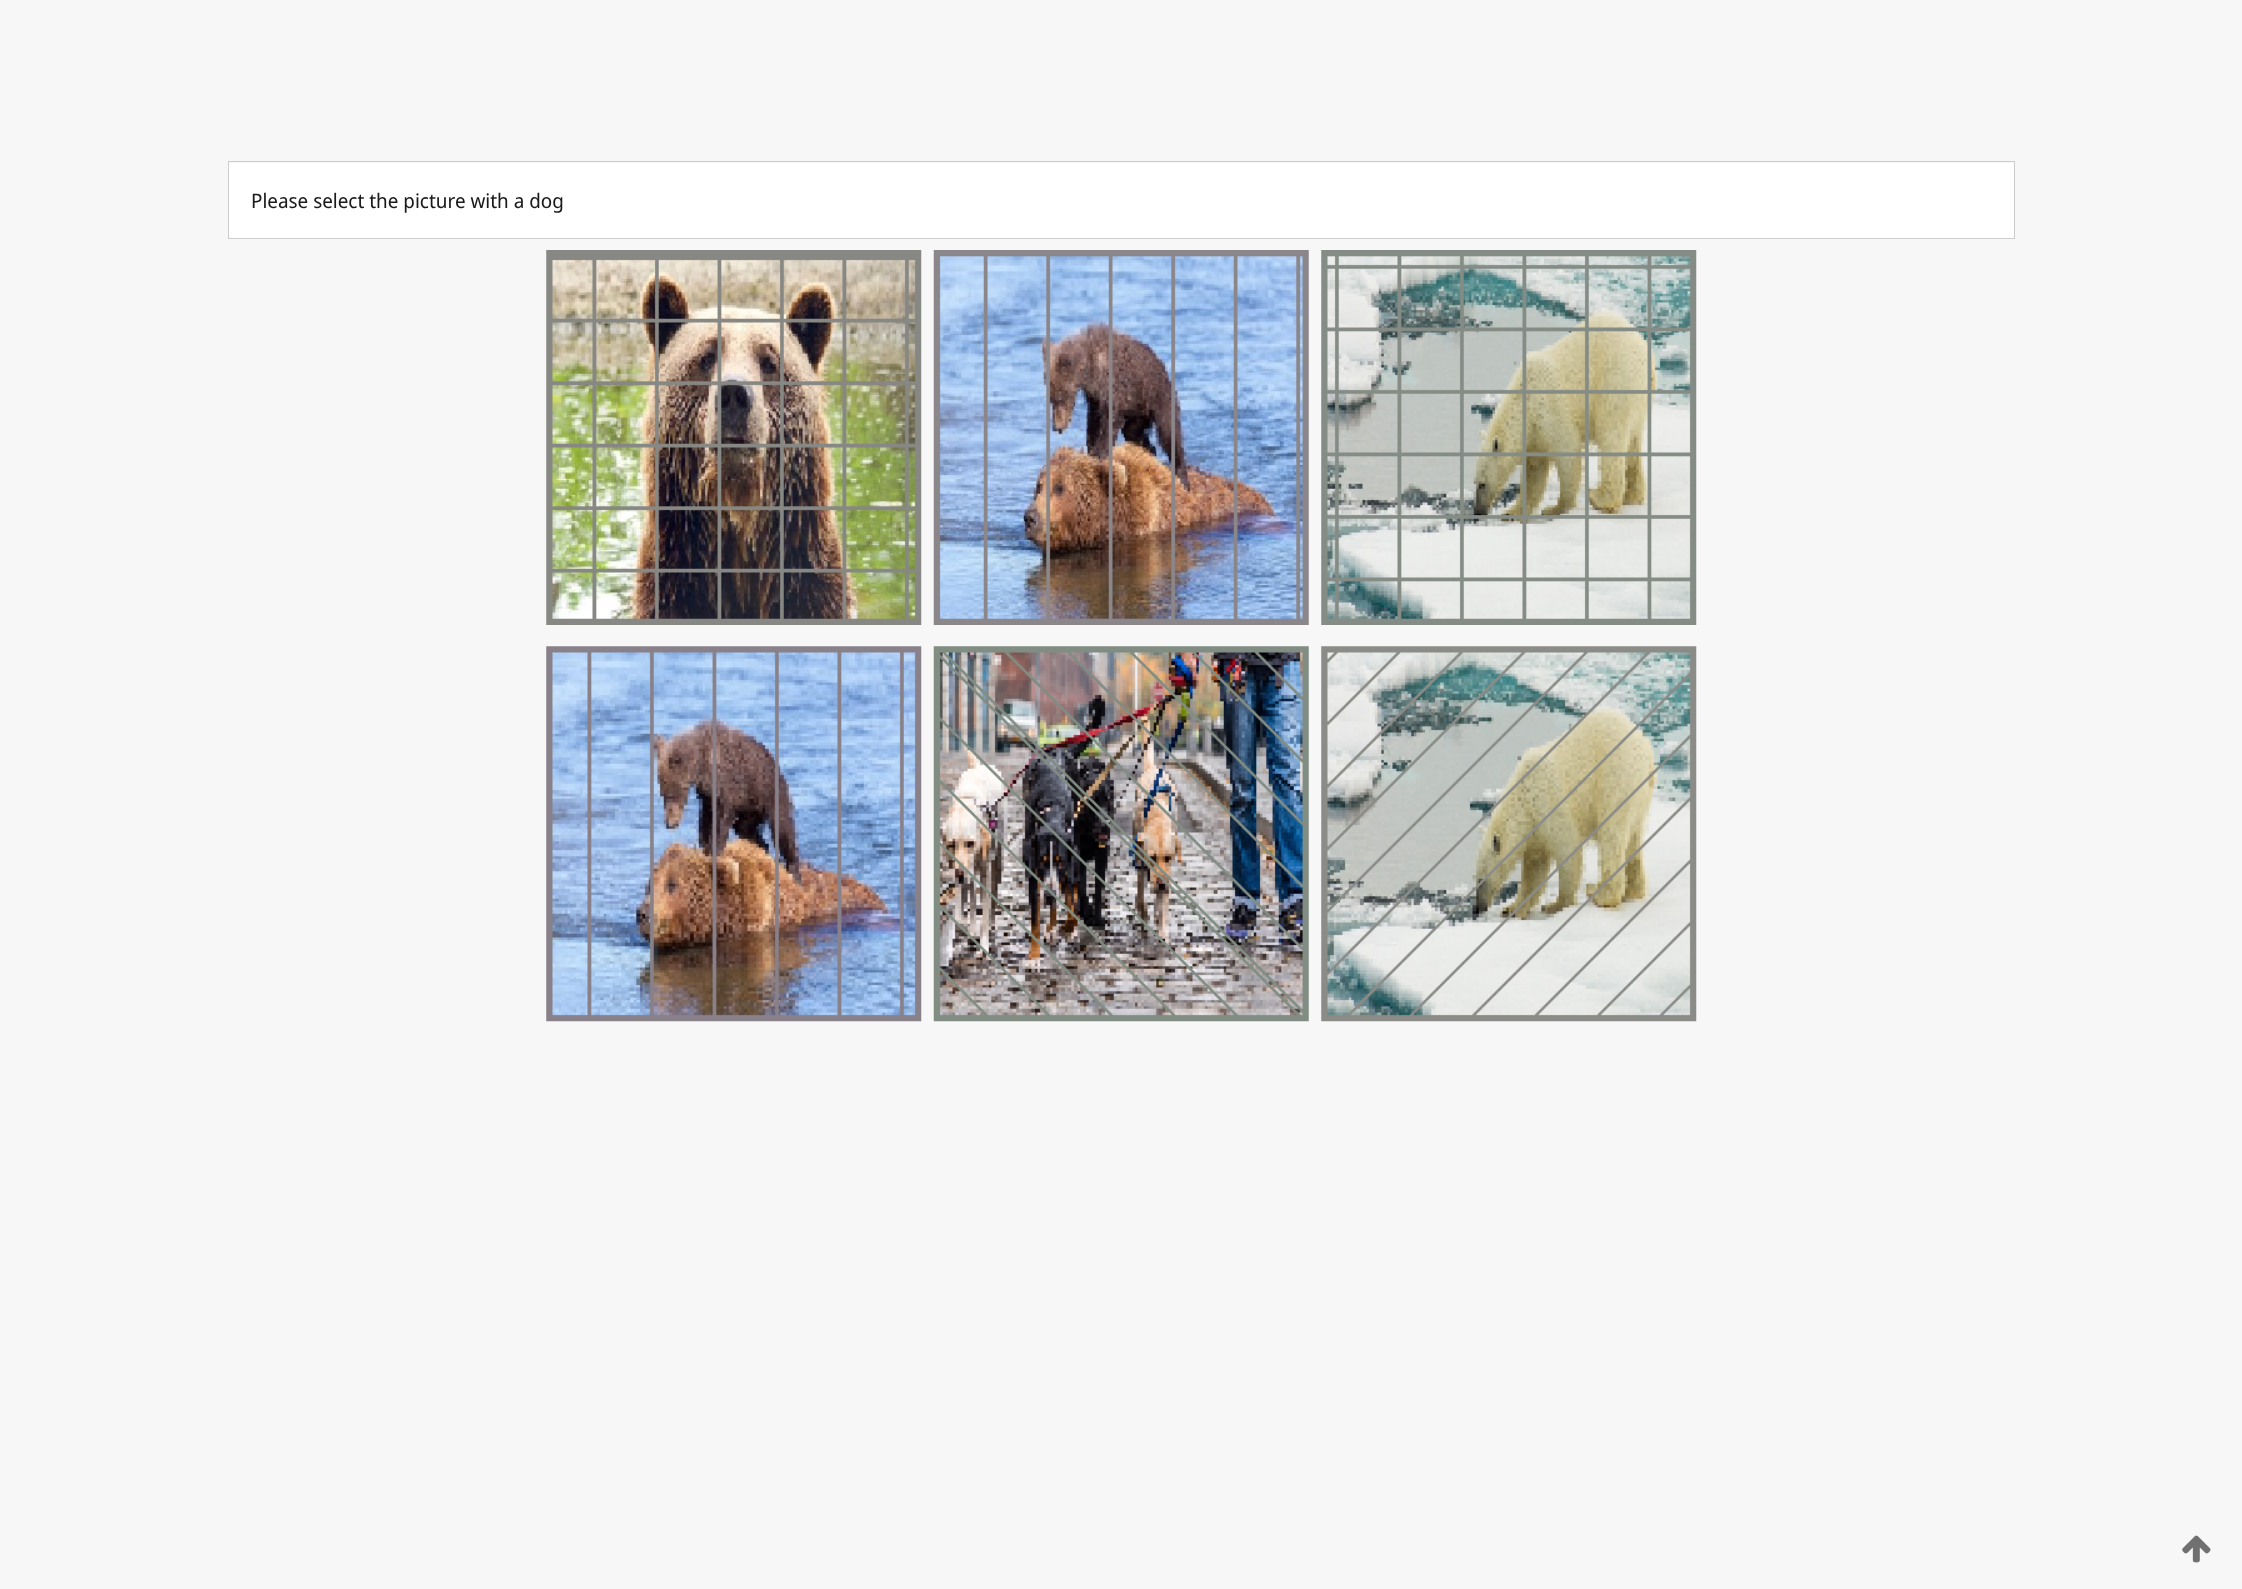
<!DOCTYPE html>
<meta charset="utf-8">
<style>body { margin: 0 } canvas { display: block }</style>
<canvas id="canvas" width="2242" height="1589"></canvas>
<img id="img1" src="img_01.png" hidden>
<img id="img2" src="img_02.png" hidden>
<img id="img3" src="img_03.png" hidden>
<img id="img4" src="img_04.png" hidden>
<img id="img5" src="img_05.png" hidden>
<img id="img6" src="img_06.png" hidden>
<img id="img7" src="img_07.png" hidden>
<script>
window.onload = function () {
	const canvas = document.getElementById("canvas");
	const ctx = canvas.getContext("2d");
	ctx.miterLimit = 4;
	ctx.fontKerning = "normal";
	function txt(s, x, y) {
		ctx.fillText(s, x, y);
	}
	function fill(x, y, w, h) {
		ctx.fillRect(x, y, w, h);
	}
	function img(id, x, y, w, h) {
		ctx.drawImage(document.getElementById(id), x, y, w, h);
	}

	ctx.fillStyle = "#F7F7F7";
	fill(0, 0, 2242, 1589);
	ctx.fillStyle = "#FFFFFF";
	fill(229, 163, 1785, 75);
	ctx.strokeStyle = "#CCCCCC";
	ctx.strokeRect(228.5, 161.5, 1786, 77);
	img("img1", 546, 250, 376, 375);
	img("img2", 933, 250, 376, 375);
	img("img3", 1321, 250, 376, 375);
	img("img4", 546, 646, 376, 376);
	img("img5", 933, 646, 376, 376);
	img("img6", 1321, 646, 376, 376);
	img("img7", 2182, 1535, 29, 28);
	ctx.font = "20px Noto Sans Display";
	ctx.fillStyle = "#1A1A1A";
	txt("Please select the picture with a dog", 251, 208);
};
</script>
